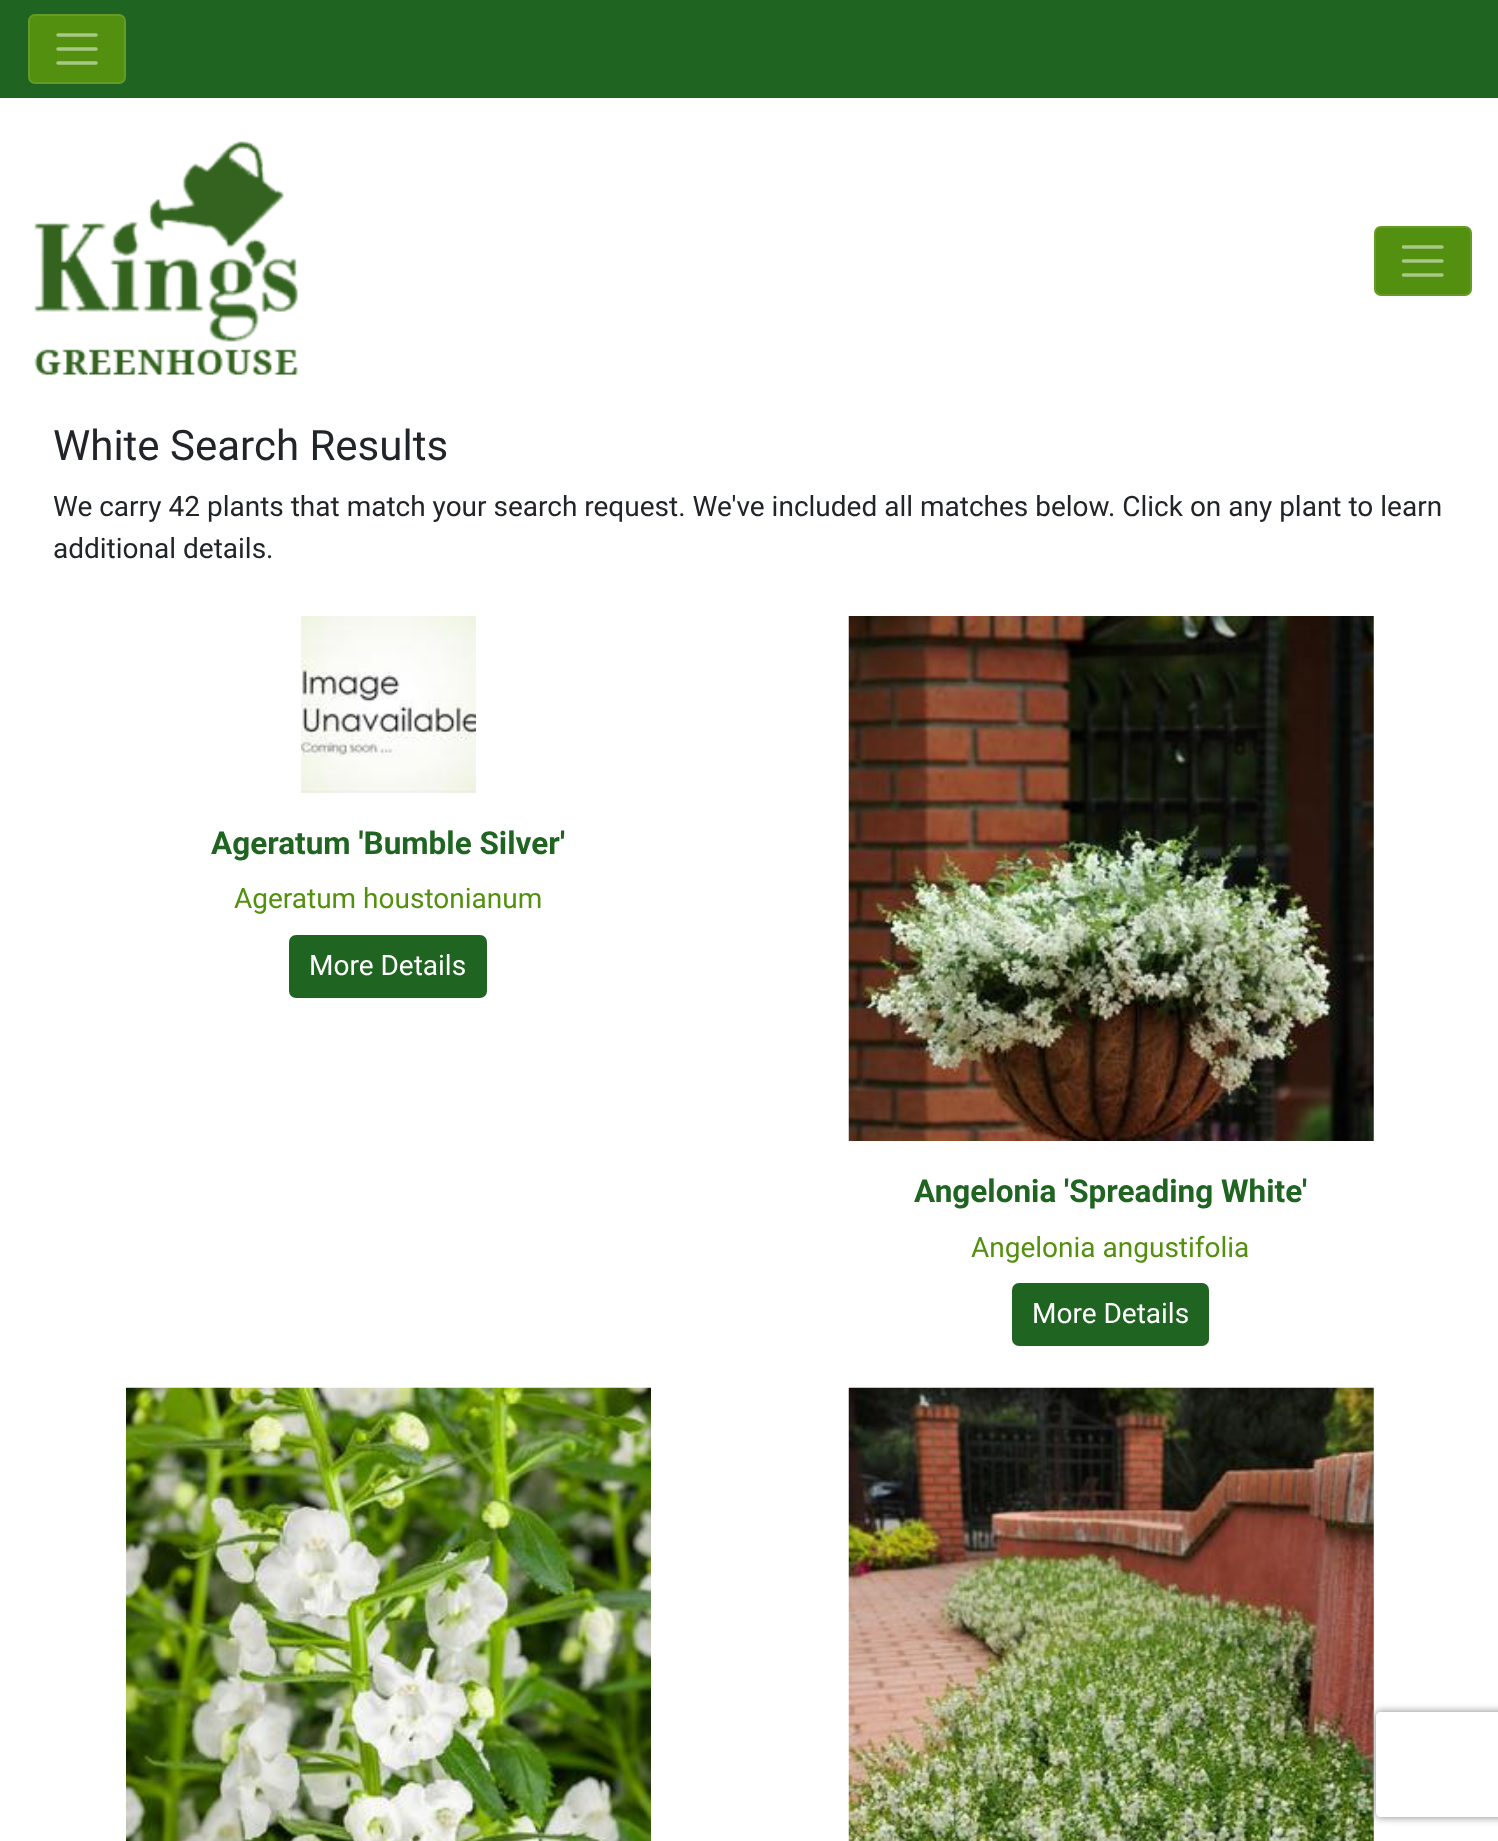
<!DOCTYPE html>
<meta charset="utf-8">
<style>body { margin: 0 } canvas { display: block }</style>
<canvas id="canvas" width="1498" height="1841"></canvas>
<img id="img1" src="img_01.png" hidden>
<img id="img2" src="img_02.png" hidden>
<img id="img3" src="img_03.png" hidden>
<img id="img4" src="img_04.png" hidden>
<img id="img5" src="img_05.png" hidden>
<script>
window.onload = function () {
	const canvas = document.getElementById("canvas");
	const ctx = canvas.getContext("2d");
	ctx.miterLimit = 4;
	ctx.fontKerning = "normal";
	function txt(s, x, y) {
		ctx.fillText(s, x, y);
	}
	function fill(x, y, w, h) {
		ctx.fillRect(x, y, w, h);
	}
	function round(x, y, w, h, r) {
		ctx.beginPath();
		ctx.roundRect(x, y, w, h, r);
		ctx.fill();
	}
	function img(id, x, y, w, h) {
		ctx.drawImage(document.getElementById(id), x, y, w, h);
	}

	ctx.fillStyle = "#FFFFFF";
	fill(0, 0, 1498, 1841);
	ctx.fillStyle = "#1F6521";
	fill(0, 0, 1498, 98);
	ctx.fillStyle = "#53900F";
	round(28, 14, 98, 70, 7);
	ctx.beginPath();
	ctx.roundRect(29, 15, 96, 68, 6);
	ctx.strokeStyle = "rgba(255, 255, 255, 0.1)";
	ctx.lineWidth = 2;
	ctx.stroke();
	ctx.beginPath();
	ctx.moveTo(58, 35);
	ctx.lineTo(96, 35);
	ctx.moveTo(58, 49);
	ctx.lineTo(96, 49);
	ctx.moveTo(58, 63);
	ctx.lineTo(96, 63);
	ctx.strokeStyle = "#A9C887";
	ctx.lineWidth = 3.5;
	ctx.lineCap = "round";
	ctx.stroke();
	img("img1", 34, 141, 264, 234);
	round(1374, 226, 98, 70, 7);
	ctx.beginPath();
	ctx.roundRect(1375, 227, 96, 68, 6);
	ctx.strokeStyle = "rgba(255, 255, 255, 0.1)";
	ctx.lineWidth = 2;
	ctx.stroke();
	ctx.beginPath();
	ctx.moveTo(1403.5, 247);
	ctx.lineTo(1442, 247);
	ctx.moveTo(1403.5, 261);
	ctx.lineTo(1442, 261);
	ctx.moveTo(1403.5, 275);
	ctx.lineTo(1442, 275);
	ctx.strokeStyle = "#A9C887";
	ctx.lineWidth = 3.5;
	ctx.stroke();
	img("img2", 301, 616, 175, 177);
	ctx.fillStyle = "#1F6521";
	round(289, 935, 198, 63, 7);
	img("img3", 848, 616, 526, 525);
	round(1012, 1283, 197, 63, 7);
	img("img4", 126, 1387, 525, 454);
	img("img5", 848, 1387, 526, 454);
	ctx.save();
	ctx.beginPath();
	ctx.moveTo(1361, 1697);
	ctx.lineTo(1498, 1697);
	ctx.lineTo(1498, 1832);
	ctx.lineTo(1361, 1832);
	ctx.closePath();
	ctx.moveTo(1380, 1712);
	ctx.lineTo(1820, 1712);
	ctx.bezierCurveTo(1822, 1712, 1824, 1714, 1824, 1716);
	ctx.lineTo(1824, 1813);
	ctx.bezierCurveTo(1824, 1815, 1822, 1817, 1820, 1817);
	ctx.lineTo(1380, 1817);
	ctx.bezierCurveTo(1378, 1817, 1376, 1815, 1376, 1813);
	ctx.lineTo(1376, 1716);
	ctx.bezierCurveTo(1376, 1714, 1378, 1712, 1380, 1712);
	ctx.closePath();
	ctx.clip("evenodd");
	ctx.fillStyle = "#808080";
	ctx.filter = "blur(4.5px)";
	ctx.beginPath();
	ctx.roundRect(1376, 1712, 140, 105, 4);
	ctx.fill();
	ctx.filter = "none";
	ctx.restore();
	ctx.font = "42px Roboto";
	ctx.fillStyle = "#212529";
	txt("White Search Results", 53, 460);
	ctx.font = "28px Roboto";
	txt("We carry 42 plants that match your search request. We've included all matches below. Click on any plant to learn", 53, 516);
	txt("additional details.", 53, 558);
	ctx.font = "bold 31.5px Roboto";
	ctx.fillStyle = "#1F6521";
	txt("Ageratum 'Bumble Silver'", 211, 854);
	ctx.font = "28px Roboto";
	ctx.fillStyle = "#53900F";
	txt("Ageratum houstonianum", 234, 908);
	ctx.fillStyle = "#FFFFFF";
	txt("More Details", 309, 975);
	ctx.font = "bold 31.5px Roboto";
	ctx.fillStyle = "#1F6521";
	txt("Angelonia 'Spreading White'", 914, 1202);
	ctx.font = "28px Roboto";
	ctx.fillStyle = "#53900F";
	txt("Angelonia angustifolia", 971, 1257);
	ctx.fillStyle = "#FFFFFF";
	txt("More Details", 1032, 1323);
};
</script>
